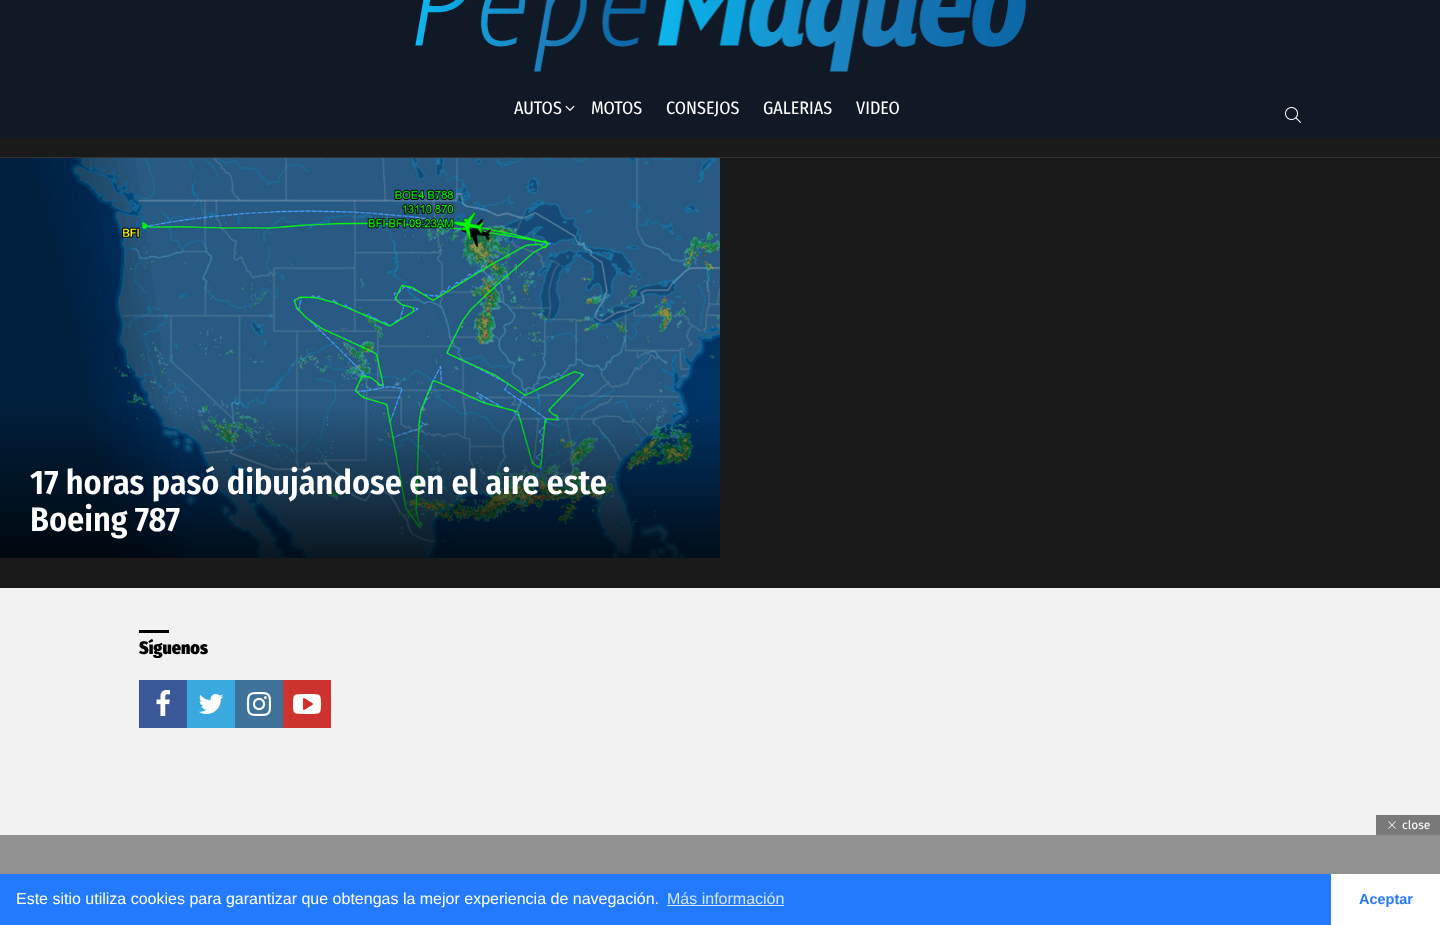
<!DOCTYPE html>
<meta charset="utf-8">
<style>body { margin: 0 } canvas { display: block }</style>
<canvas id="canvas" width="1440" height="925"></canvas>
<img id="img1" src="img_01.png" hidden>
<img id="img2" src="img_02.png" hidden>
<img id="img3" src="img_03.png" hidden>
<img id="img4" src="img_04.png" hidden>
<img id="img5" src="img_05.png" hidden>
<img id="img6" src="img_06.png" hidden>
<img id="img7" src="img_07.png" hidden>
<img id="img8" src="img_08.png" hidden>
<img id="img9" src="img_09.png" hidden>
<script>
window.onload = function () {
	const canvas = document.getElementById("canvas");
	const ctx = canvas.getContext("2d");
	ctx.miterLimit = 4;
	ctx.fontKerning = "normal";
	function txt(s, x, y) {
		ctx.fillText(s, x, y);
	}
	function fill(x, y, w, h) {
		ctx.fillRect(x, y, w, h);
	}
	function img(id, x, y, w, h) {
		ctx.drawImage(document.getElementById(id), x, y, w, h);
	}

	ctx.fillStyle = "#1A1A1A";
	fill(0, 0, 1440, 925);
	ctx.fillStyle = "#101925";
	fill(0, 0, 1440, 138);
	img("img1", 415, 0, 612, 72);
	img("img2", 565, 105, 10, 6);
	img("img3", 1285, 107, 16, 16);
	ctx.fillStyle = "#333333";
	fill(0, 157, 1440, 1);
	img("img4", 0, 158, 720, 400);
	ctx.fillStyle = "#F2F2F2";
	fill(0, 588, 1440, 247);
	ctx.fillStyle = "#919191";
	fill(0, 835, 1440, 39);
	ctx.fillStyle = "#000000";
	fill(139, 630, 30, 3);
	ctx.fillStyle = "#3B5998";
	fill(139, 680, 48, 48);
	img("img5", 156, 690, 14, 26);
	ctx.fillStyle = "#39A9E0";
	fill(187, 680, 48, 48);
	img("img6", 198, 694, 26, 20);
	ctx.fillStyle = "#3F729B";
	fill(235, 680, 48, 48);
	img("img7", 247, 692, 24, 24);
	ctx.fillStyle = "#CD332D";
	fill(283, 680, 48, 48);
	img("img8", 293, 694, 28, 20);
	ctx.fillStyle = "#797979";
	fill(1376, 815, 64, 20);
	img("img9", 1388, 821, 8, 8);
	ctx.fillStyle = "#237AFC";
	fill(0, 874, 1331, 51);
	ctx.fillStyle = "#D3E4FE";
	fill(667, 905, 117, 1);
	ctx.fillStyle = "#FFFFFF";
	fill(1331, 874, 109, 51);
	ctx.font = "18px Fira Sans Condensed";
	txt("AUTOS", 514, 114);
	txt("MOTOS", 591, 114);
	txt("CONSEJOS", 666, 114);
	txt("GALERIAS", 763, 114);
	txt("VIDEO", 856, 114);
	ctx.font = "600 34px Fira Sans Condensed";
	txt("17 horas pasó dibujándose en el aire este", 30, 494);
	txt("Boeing 787", 30, 531);
	ctx.font = "900 18px Fira Sans Condensed";
	ctx.fillStyle = "#000000";
	txt("Síguenos", 139, 654);
	ctx.font = "12px Fira Sans";
	ctx.fillStyle = "#FFFFFF";
	txt("close", 1402, 829);
	ctx.font = "16px Liberation Sans";
	txt("Este sitio utiliza cookies para garantizar que obtengas la mejor experiencia de navegación.", 16, 904);
	ctx.fillStyle = "#D3E4FE";
	txt("Más información", 667, 904);
	ctx.font = "bold 14.5px Liberation Sans";
	ctx.fillStyle = "#237AFC";
	txt("Aceptar", 1359, 904);
};
</script>
